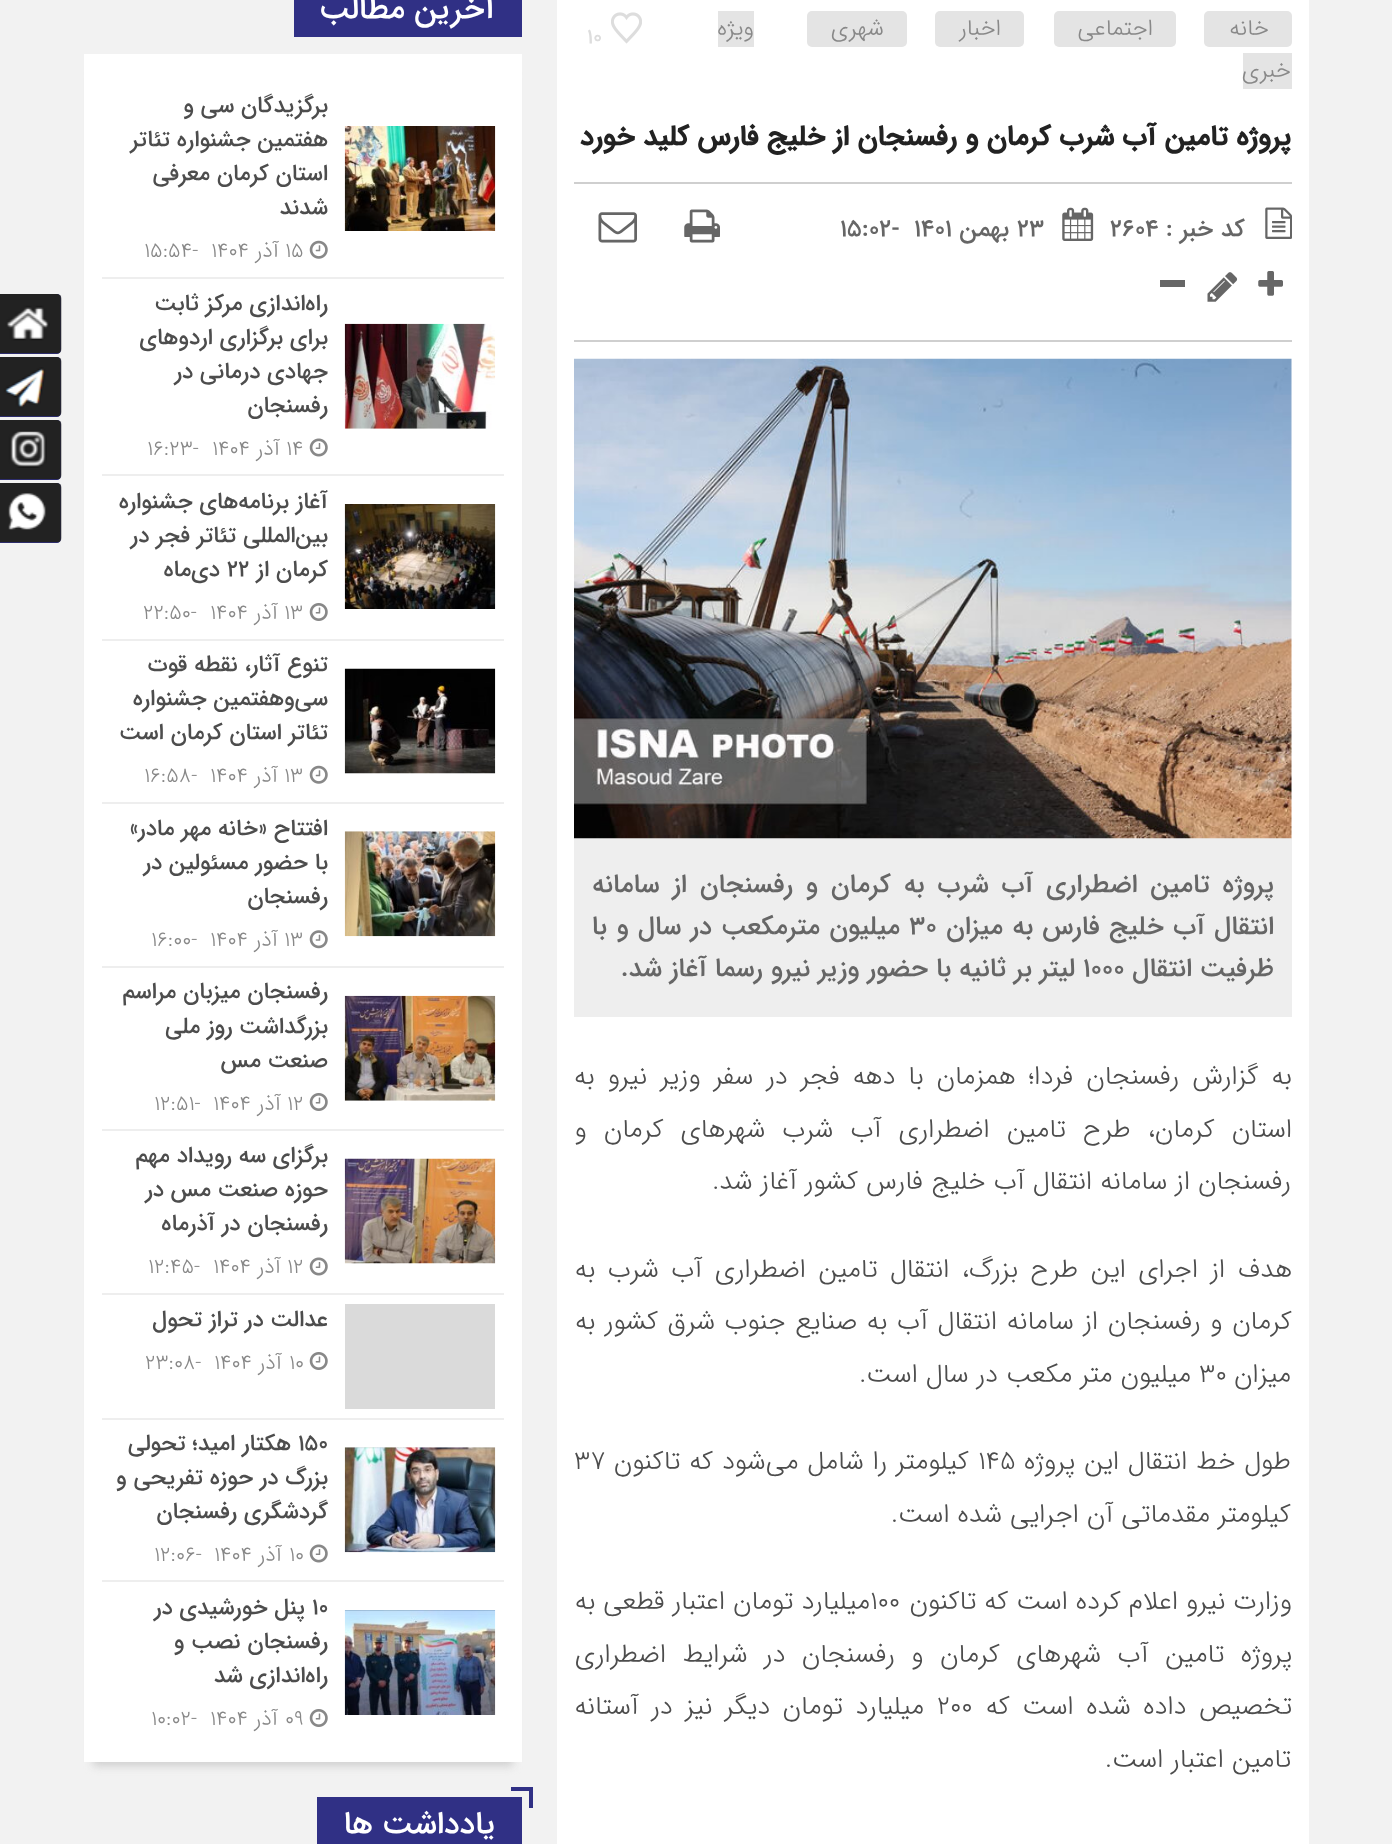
<!DOCTYPE html>
<meta charset="utf-8">
<style>body { margin: 0 } canvas { display: block }</style>
<canvas id="canvas" width="1392" height="1844"></canvas>
<img id="img1" src="img_01.png" hidden>
<img id="img2" src="img_02.png" hidden>
<img id="img3" src="img_03.png" hidden>
<img id="img4" src="img_04.png" hidden>
<img id="img5" src="img_05.png" hidden>
<img id="img6" src="img_06.png" hidden>
<img id="img7" src="img_07.png" hidden>
<img id="img8" src="img_08.png" hidden>
<img id="img9" src="img_09.png" hidden>
<img id="img10" src="img_10.png" hidden>
<img id="img11" src="img_11.png" hidden>
<img id="img12" src="img_12.png" hidden>
<img id="img13" src="img_13.png" hidden>
<img id="img14" src="img_14.png" hidden>
<img id="img15" src="img_15.png" hidden>
<img id="img16" src="img_16.png" hidden>
<img id="img17" src="img_17.png" hidden>
<img id="img18" src="img_18.png" hidden>
<img id="img19" src="img_19.png" hidden>
<img id="img20" src="img_20.png" hidden>
<img id="img21" src="img_21.png" hidden>
<img id="img22" src="img_22.png" hidden>
<img id="img23" src="img_23.png" hidden>
<img id="img24" src="img_24.png" hidden>
<img id="img25" src="img_25.png" hidden>
<img id="img26" src="img_26.png" hidden>
<img id="img27" src="img_27.png" hidden>
<script>
window.onload = function () {
	const canvas = document.getElementById("canvas");
	const ctx = canvas.getContext("2d");
	ctx.miterLimit = 4;
	ctx.fontKerning = "normal";
	function txt(s, x, y) {
		ctx.fillText(s, x, y);
	}
	function fill(x, y, w, h) {
		ctx.fillRect(x, y, w, h);
	}
	function round(x, y, w, h, r) {
		ctx.beginPath();
		ctx.roundRect(x, y, w, h, r);
		ctx.fill();
	}
	function img(id, x, y, w, h) {
		ctx.drawImage(document.getElementById(id), x, y, w, h);
	}

	ctx.fillStyle = "#F2F2F2";
	fill(0, 0, 1392, 1844);
	ctx.fillStyle = "#FFFFFF";
	fill(557, 0, 752, 1844);
	ctx.fillStyle = "#E4E4E4";
	round(1204, 11, 88, 36, 5);
	round(1054, 11, 122, 36, 5);
	round(935, 11, 89, 36, 5);
	round(807, 11, 100, 36, 5);
	fill(718, 11, 36, 36);
	fill(1243, 53, 49, 36);
	img("img1", 611, 12, 31, 32);
	ctx.fillStyle = "#CFCFCF";
	fill(574, 182, 718, 2);
	fill(574, 340, 718, 2);
	img("img2", 1265, 207, 27, 32);
	img("img3", 1062, 207, 32, 34);
	img("img4", 684, 209, 36, 34);
	img("img5", 598, 212, 39, 31);
	img("img6", 1258, 271, 25, 25);
	img("img7", 1207, 272, 31, 30);
	ctx.fillStyle = "#666666";
	fill(1160, 280, 25, 7);
	ctx.fillStyle = "#EEEEEE";
	fill(574, 838, 718, 179);
	img("img8", 574, 358, 718, 481);
	ctx.fillStyle = "#303085";
	fill(294, 0, 228, 37);
	ctx.fillStyle = "#CFCFCF";
	ctx.filter = "blur(4.5px)";
	ctx.beginPath();
	ctx.rect(93, 75, 420, 1691);
	ctx.fill();
	ctx.filter = "none";
	ctx.fillStyle = "#FFFFFF";
	fill(84, 54, 438, 1708);
	ctx.fillStyle = "#EEEEEE";
	fill(102, 277, 402, 2);
	img("img9", 344, 126, 152, 105);
	img("img10", 309, 240, 19, 19);
	fill(102, 474, 402, 2);
	img("img11", 344, 323, 152, 106);
	img("img12", 309, 438, 19, 19);
	fill(102, 639, 402, 2);
	img("img13", 344, 504, 152, 105);
	img("img14", 309, 603, 19, 18);
	fill(102, 802, 402, 2);
	img("img15", 344, 668, 152, 106);
	img("img16", 309, 765, 19, 19);
	fill(102, 966, 402, 2);
	img("img17", 344, 831, 152, 106);
	img("img18", 309, 930, 19, 19);
	fill(102, 1129, 402, 2);
	img("img19", 344, 995, 152, 106);
	img("img14", 309, 1093, 19, 18);
	fill(102, 1293, 402, 2);
	img("img20", 344, 1158, 152, 106);
	img("img21", 309, 1257, 19, 19);
	fill(102, 1418, 402, 2);
	ctx.fillStyle = "#DADADA";
	fill(345, 1304, 150, 105);
	img("img14", 309, 1352, 19, 18);
	ctx.fillStyle = "#EEEEEE";
	fill(102, 1580, 402, 2);
	img("img22", 344, 1447, 152, 106);
	img("img21", 309, 1544, 19, 19);
	img("img23", 344, 1610, 152, 105);
	img("img14", 309, 1709, 19, 18);
	ctx.fillStyle = "#303085";
	fill(317, 1797, 205, 47);
	fill(511, 1787, 21, 4);
	fill(529, 1787, 4, 21);
	ctx.beginPath();
	ctx.moveTo(-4, 294);
	ctx.lineTo(57, 294);
	ctx.bezierCurveTo(59, 294, 61, 296, 61, 298);
	ctx.lineTo(61, 350);
	ctx.bezierCurveTo(61, 352, 59, 354, 57, 354);
	ctx.lineTo(-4, 354);
	ctx.closePath();
	ctx.fill();
	img("img24", 0, 294, 62, 60);
	ctx.beginPath();
	ctx.moveTo(-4, 357);
	ctx.lineTo(57, 357);
	ctx.bezierCurveTo(59, 357, 61, 359, 61, 361);
	ctx.lineTo(61, 413);
	ctx.bezierCurveTo(61, 415, 59, 417, 57, 417);
	ctx.lineTo(-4, 417);
	ctx.closePath();
	ctx.fill();
	img("img25", 0, 357, 62, 60);
	ctx.beginPath();
	ctx.moveTo(-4, 420);
	ctx.lineTo(57, 420);
	ctx.bezierCurveTo(59, 420, 61, 422, 61, 424);
	ctx.lineTo(61, 476);
	ctx.bezierCurveTo(61, 478, 59, 480, 57, 480);
	ctx.lineTo(-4, 480);
	ctx.closePath();
	ctx.fill();
	img("img26", 0, 420, 62, 60);
	ctx.beginPath();
	ctx.moveTo(-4, 483);
	ctx.lineTo(57, 483);
	ctx.bezierCurveTo(59, 483, 61, 485, 61, 487);
	ctx.lineTo(61, 539);
	ctx.bezierCurveTo(61, 541, 59, 543, 57, 543);
	ctx.lineTo(-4, 543);
	ctx.closePath();
	ctx.fill();
	img("img27", 0, 483, 62, 60);
	ctx.direction = "rtl";
	ctx.font = "300 22.75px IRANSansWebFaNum";
	ctx.fillStyle = "#888888";
	txt("خانه", 1269, 35);
	txt("اجتماعی", 1153, 35);
	txt("اخبار", 1001, 35);
	txt("شهری", 884, 35);
	txt("ویژه", 754, 35);
	txt("خبری", 1291, 77);
	ctx.direction = "ltr";
	ctx.font = "500 21px IRANSansWebFaNum";
	ctx.fillStyle = "#DDDDDD";
	txt("10", 587, 43);
	ctx.direction = "rtl";
	ctx.font = "bold 28px IRANSansWebFaNum";
	ctx.fillStyle = "#222222";
	txt("پروژه تامین آب شرب کرمان و رفسنجان از خلیج فارس کلید خورد", 1291, 145);
	ctx.font = "500 24.5px IRANSansWebFaNum";
	ctx.fillStyle = "#666666";
	txt("کد خبر :", 1245, 236);
	ctx.direction = "ltr";
	txt("2604", 1110, 236);
	txt("23", 1017, 236);
	ctx.direction = "rtl";
	txt("بهمن", 1009, 236);
	ctx.direction = "ltr";
	txt("1401", 914, 236);
	txt("15:02-", 840, 236);
	ctx.wordSpacing = "5px";
	ctx.direction = "rtl";
	ctx.font = "500 26.25px IRANSansWebFaNum";
	txt("پروژه تامین اضطراری آب شرب به کرمان و رفسنجان از سامانه", 1274, 892);
	ctx.wordSpacing = "1.5px";
	txt("انتقال آب خلیج فارس به میزان", 1274, 934);
	ctx.wordSpacing = "0px";
	ctx.direction = "ltr";
	txt("۳۰", 909, 934);
	ctx.wordSpacing = "1.5px";
	ctx.direction = "rtl";
	txt("میلیون مترمکعب در سال و با", 900, 934);
	ctx.wordSpacing = "0px";
	txt("ظرفیت انتقال", 1274, 976);
	ctx.direction = "ltr";
	txt("۱۰۰۰", 1083, 976);
	ctx.direction = "rtl";
	txt("لیتر بر ثانیه با حضور وزیر نیرو رسما آغاز شد.", 1075, 976);
	ctx.wordSpacing = "5px";
	ctx.font = "300 26.25px IRANSansWebFaNum";
	ctx.fillStyle = "#4D4D4D";
	txt("به گزارش رفسنجان فردا؛ همزمان با دهه فجر در سفر وزیر نیرو به", 1292, 1084);
	ctx.wordSpacing = "9px";
	txt("استان کرمان، طرح تامین اضطراری آب شرب شهرهای کرمان و", 1292, 1137);
	ctx.wordSpacing = "0px";
	txt("رفسنجان از سامانه انتقال آب خلیج فارس کشور آغاز شد.", 1291, 1189);
	ctx.wordSpacing = "4.4px";
	txt("هدف از اجرای این طرح بزرگ، انتقال تامین اضطراری آب شرب به", 1292, 1277);
	ctx.wordSpacing = "1.6px";
	txt("کرمان و رفسنجان از سامانه انتقال آب به صنایع جنوب شرق کشور به", 1292, 1329);
	ctx.wordSpacing = "0px";
	txt("میزان", 1291, 1382);
	ctx.direction = "ltr";
	txt("۳۰", 1199, 1382);
	ctx.direction = "rtl";
	txt("میلیون متر مکعب در سال است.", 1191, 1382);
	ctx.wordSpacing = "0.75px";
	txt("طول خط انتقال این پروژه", 1291, 1469);
	ctx.wordSpacing = "0px";
	ctx.direction = "ltr";
	txt("۱۴۵", 978, 1469);
	ctx.wordSpacing = "0.75px";
	ctx.direction = "rtl";
	txt("کیلومتر را شامل می‌شود که تاکنون", 969, 1469);
	ctx.wordSpacing = "0px";
	ctx.direction = "ltr";
	txt("۳۷", 574, 1469);
	ctx.direction = "rtl";
	txt("کیلومتر مقدماتی آن اجرایی شده است.", 1291, 1522);
	txt("وزارت نیرو اعلام کرده است که تاکنون", 1292, 1609);
	ctx.direction = "ltr";
	txt("۱۰۰", 870, 1609);
	ctx.direction = "rtl";
	txt("‌میلیارد تومان اعتبار قطعی به", 870, 1609);
	ctx.wordSpacing = "8.5px";
	txt("پروژه تامین آب شهرهای کرمان و رفسنجان در شرایط اضطراری", 1292, 1662);
	ctx.wordSpacing = "4.5px";
	txt("تخصیص داده شده است که", 1292, 1714);
	ctx.wordSpacing = "0px";
	ctx.direction = "ltr";
	txt("۲۰۰", 937, 1714);
	ctx.wordSpacing = "4.5px";
	ctx.direction = "rtl";
	txt("میلیارد تومان دیگر نیز در آستانه", 924, 1714);
	ctx.wordSpacing = "0px";
	txt("تامین اعتبار است.", 1291, 1767);
	ctx.font = "500 31.5px IRANSansWebFaNum";
	ctx.fillStyle = "#FFFFFF";
	txt("آخرین مطالب", 495, 18);
	ctx.font = "500 22.75px IRANSansWebFaNum";
	ctx.fillStyle = "#4D4D4D";
	txt("برگزیدگان سی و", 328, 112);
	txt("هفتمین جشنواره تئاتر", 328, 146);
	txt("استان کرمان معرفی", 328, 180);
	txt("شدند", 328, 214);
	ctx.direction = "ltr";
	ctx.font = "300 21px IRANSansWebFaNum";
	ctx.fillStyle = "#888888";
	txt("15", 285, 257);
	ctx.direction = "rtl";
	txt("آذر", 279, 257);
	ctx.direction = "ltr";
	txt("1404", 211, 257);
	txt("15:54-", 144, 257);
	ctx.direction = "rtl";
	ctx.font = "500 22.75px IRANSansWebFaNum";
	ctx.fillStyle = "#4D4D4D";
	txt("راه‌اندازی مرکز ثابت", 328, 310);
	txt("برای برگزاری اردوهای", 328, 344);
	txt("جهادی درمانی در", 328, 378);
	txt("رفسنجان", 328, 412);
	ctx.direction = "ltr";
	ctx.font = "300 21px IRANSansWebFaNum";
	ctx.fillStyle = "#888888";
	txt("14", 286, 455);
	ctx.direction = "rtl";
	txt("آذر", 280, 455);
	ctx.direction = "ltr";
	txt("1404", 212, 455);
	txt("16:23-", 147, 455);
	ctx.direction = "rtl";
	ctx.font = "500 22.75px IRANSansWebFaNum";
	ctx.fillStyle = "#4D4D4D";
	txt("آغاز برنامه‌های جشنواره", 328, 508);
	txt("بین‌المللی تئاتر فجر در", 328, 542);
	txt("کرمان از", 328, 576);
	ctx.direction = "ltr";
	txt("۲۲", 227, 576);
	ctx.direction = "rtl";
	txt("دی‌ماه", 220, 576);
	ctx.direction = "ltr";
	ctx.font = "300 21px IRANSansWebFaNum";
	ctx.fillStyle = "#888888";
	txt("13", 284, 619);
	ctx.direction = "rtl";
	txt("آذر", 278, 619);
	ctx.direction = "ltr";
	txt("1404", 210, 619);
	txt("22:50-", 143, 619);
	ctx.direction = "rtl";
	ctx.font = "500 22.75px IRANSansWebFaNum";
	ctx.fillStyle = "#4D4D4D";
	txt("تنوع آثار، نقطه‌ قوت", 328, 671);
	txt("سی‌وهفتمین جشنواره", 328, 705);
	txt("تئاتر استان کرمان است", 328, 739);
	ctx.direction = "ltr";
	ctx.font = "300 21px IRANSansWebFaNum";
	ctx.fillStyle = "#888888";
	txt("13", 284, 782);
	ctx.direction = "rtl";
	txt("آذر", 278, 782);
	ctx.direction = "ltr";
	txt("1404", 210, 782);
	txt("16:58-", 144, 782);
	ctx.direction = "rtl";
	ctx.font = "500 22.75px IRANSansWebFaNum";
	ctx.fillStyle = "#4D4D4D";
	txt("افتتاح «خانه مهر مادر»", 328, 835);
	txt("با حضور مسئولین در", 328, 869);
	txt("رفسنجان", 328, 903);
	ctx.direction = "ltr";
	ctx.font = "300 21px IRANSansWebFaNum";
	ctx.fillStyle = "#888888";
	txt("13", 284, 946);
	ctx.direction = "rtl";
	txt("آذر", 278, 946);
	ctx.direction = "ltr";
	txt("1404", 210, 946);
	txt("16:00-", 151, 946);
	ctx.direction = "rtl";
	ctx.font = "500 22.75px IRANSansWebFaNum";
	ctx.fillStyle = "#4D4D4D";
	txt("رفسنجان میزبان مراسم", 328, 998);
	txt("بزرگداشت روز ملی", 328, 1033);
	txt("صنعت مس", 328, 1067);
	ctx.direction = "ltr";
	ctx.font = "300 21px IRANSansWebFaNum";
	ctx.fillStyle = "#888888";
	txt("12", 287, 1110);
	ctx.direction = "rtl";
	txt("آذر", 281, 1110);
	ctx.direction = "ltr";
	txt("1404", 213, 1110);
	txt("12:51-", 154, 1110);
	ctx.direction = "rtl";
	ctx.font = "500 22.75px IRANSansWebFaNum";
	ctx.fillStyle = "#4D4D4D";
	txt("برگزای سه رویداد مهم", 328, 1162);
	txt("حوزه صنعت مس در", 328, 1196);
	txt("رفسنجان در آذرماه", 328, 1230);
	ctx.direction = "ltr";
	ctx.font = "300 21px IRANSansWebFaNum";
	ctx.fillStyle = "#888888";
	txt("12", 287, 1273);
	ctx.direction = "rtl";
	txt("آذر", 281, 1273);
	ctx.direction = "ltr";
	txt("1404", 213, 1273);
	txt("12:45-", 148, 1273);
	ctx.direction = "rtl";
	ctx.font = "500 22.75px IRANSansWebFaNum";
	ctx.fillStyle = "#4D4D4D";
	txt("عدالت در تراز تحول", 328, 1326);
	ctx.direction = "ltr";
	ctx.font = "300 21px IRANSansWebFaNum";
	ctx.fillStyle = "#888888";
	txt("10", 289, 1369);
	ctx.direction = "rtl";
	txt("آذر", 282, 1369);
	ctx.direction = "ltr";
	txt("1404", 214, 1369);
	txt("23:08-", 145, 1369);
	ctx.font = "500 22.75px IRANSansWebFaNum";
	ctx.fillStyle = "#4D4D4D";
	txt("۱۵۰", 298, 1450);
	ctx.direction = "rtl";
	txt("هکتار امید؛ تحولی", 291, 1450);
	txt("بزرگ در حوزه تفریحی و", 328, 1484);
	txt("گردشگری رفسنجان", 328, 1518);
	ctx.direction = "ltr";
	ctx.font = "300 21px IRANSansWebFaNum";
	ctx.fillStyle = "#888888";
	txt("10", 289, 1561);
	ctx.direction = "rtl";
	txt("آذر", 282, 1561);
	ctx.direction = "ltr";
	txt("1404", 214, 1561);
	txt("12:06-", 154, 1561);
	ctx.font = "500 22.75px IRANSansWebFaNum";
	ctx.fillStyle = "#4D4D4D";
	txt("۱۰", 312, 1614);
	ctx.direction = "rtl";
	txt("پنل خورشیدی در", 305, 1614);
	txt("رفسنجان نصب و", 328, 1648);
	txt("راه‌اندازی شد", 328, 1682);
	ctx.direction = "ltr";
	ctx.font = "300 21px IRANSansWebFaNum";
	ctx.fillStyle = "#888888";
	txt("09", 285, 1725);
	ctx.direction = "rtl";
	txt("آذر", 278, 1725);
	ctx.direction = "ltr";
	txt("1404", 210, 1725);
	txt("10:02-", 151, 1725);
	ctx.direction = "rtl";
	ctx.font = "500 31.5px IRANSansWebFaNum";
	ctx.fillStyle = "#FFFFFF";
	txt("یادداشت ها", 495, 1833);
};
</script>
